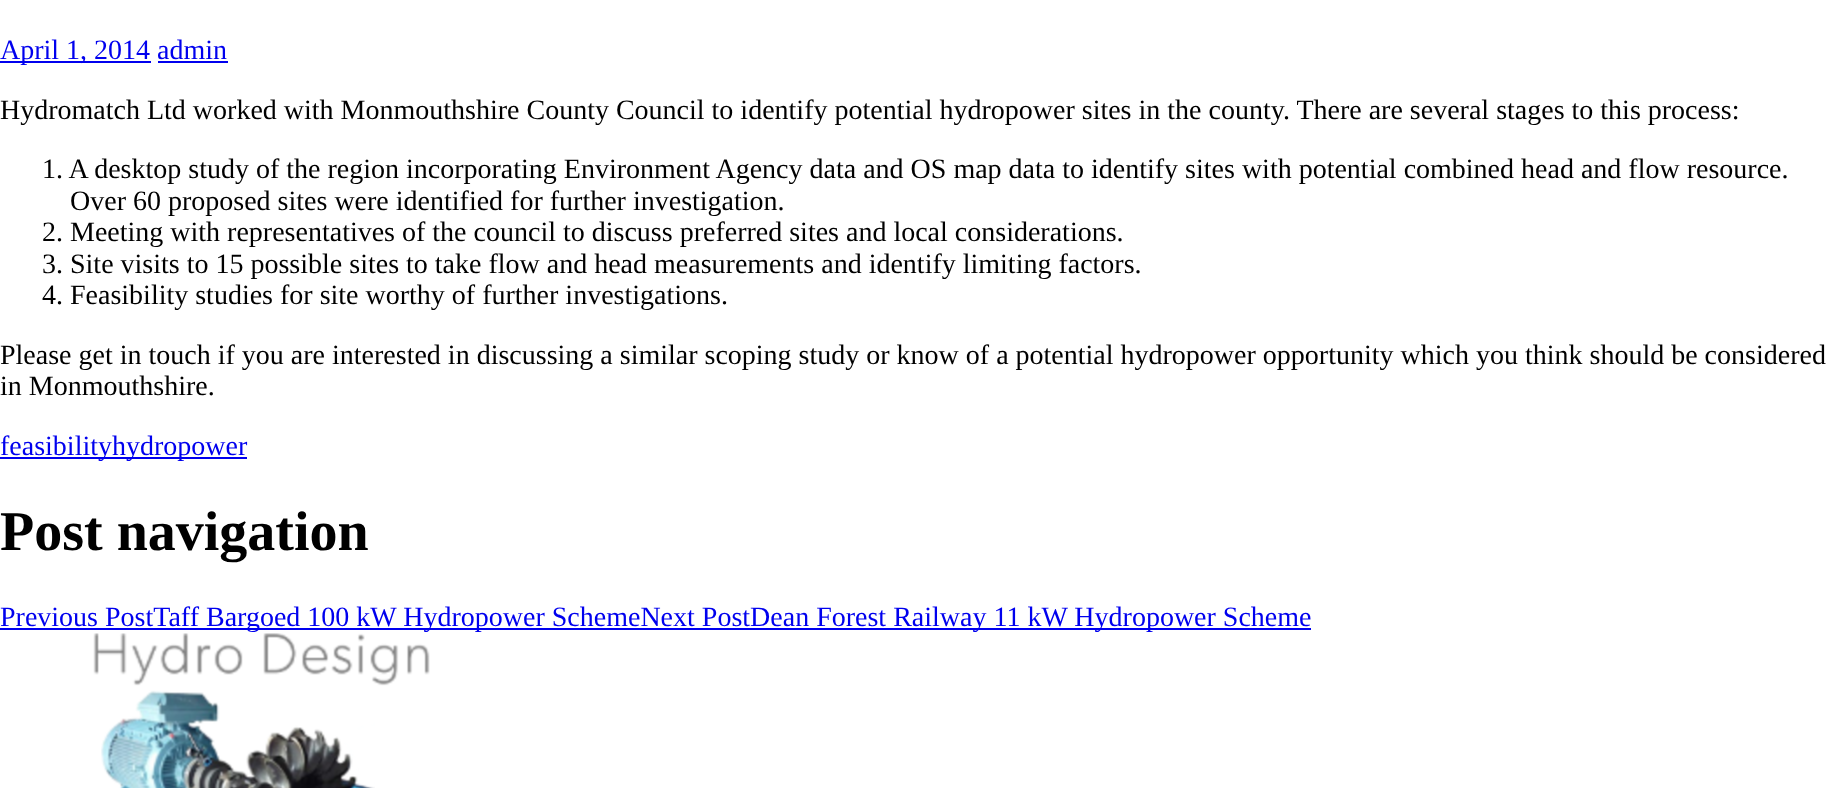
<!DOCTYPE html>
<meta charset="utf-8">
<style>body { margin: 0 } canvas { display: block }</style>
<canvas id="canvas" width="1839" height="788"></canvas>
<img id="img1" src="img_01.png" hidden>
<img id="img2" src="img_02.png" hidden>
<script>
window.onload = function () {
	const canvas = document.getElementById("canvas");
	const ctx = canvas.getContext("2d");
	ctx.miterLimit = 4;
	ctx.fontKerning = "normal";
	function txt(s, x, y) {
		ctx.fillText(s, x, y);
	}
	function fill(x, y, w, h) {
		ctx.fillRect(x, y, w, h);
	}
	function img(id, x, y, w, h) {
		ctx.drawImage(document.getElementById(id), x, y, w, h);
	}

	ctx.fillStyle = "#FFFFFF";
	fill(0, 0, 1839, 788);
	ctx.fillStyle = "#0000EE";
	fill(0, 61, 151, 2);
	fill(158, 61, 70, 2);
	fill(0, 457, 247, 2);
	fill(0, 628, 1311, 2);
	img("img1", 93, 633, 337, 53);
	img("img2", 101, 690, 274, 98);
	ctx.font = "28px Liberation Serif";
	txt("April 1, 2014 admin", 0, 59);
	ctx.fillStyle = "#000000";
	txt("Hydromatch Ltd worked with Monmouthshire County Council to identify potential hydropower sites in the county. There are several stages to this process:", 0, 119);
	txt("1. A desktop study of the region incorporating Environment Agency data and OS map data to identify sites with potential combined head and flow resource.", 42, 178);
	txt("Over 60 proposed sites were identified for further investigation.", 70, 210);
	txt("2. Meeting with representatives of the council to discuss preferred sites and local considerations.", 42, 241);
	txt("3. Site visits to 15 possible sites to take flow and head measurements and identify limiting factors.", 42, 273);
	txt("4. Feasibility studies for site worthy of further investigations.", 42, 304);
	txt("Please get in touch if you are interested in discussing a similar scoping study or know of a potential hydropower opportunity which you think should be considered", 0, 364);
	txt("in Monmouthshire.", 0, 395);
	ctx.fillStyle = "#0000EE";
	txt("feasibilityhydropower", 0, 455);
	ctx.font = "bold 56px Liberation Serif";
	ctx.fillStyle = "#000000";
	txt("Post navigation", 0, 550);
	ctx.font = "28px Liberation Serif";
	ctx.fillStyle = "#0000EE";
	txt("Previous PostTaff Bargoed 100 kW Hydropower SchemeNext PostDean Forest Railway 11 kW Hydropower Scheme", 0, 626);
};
</script>
